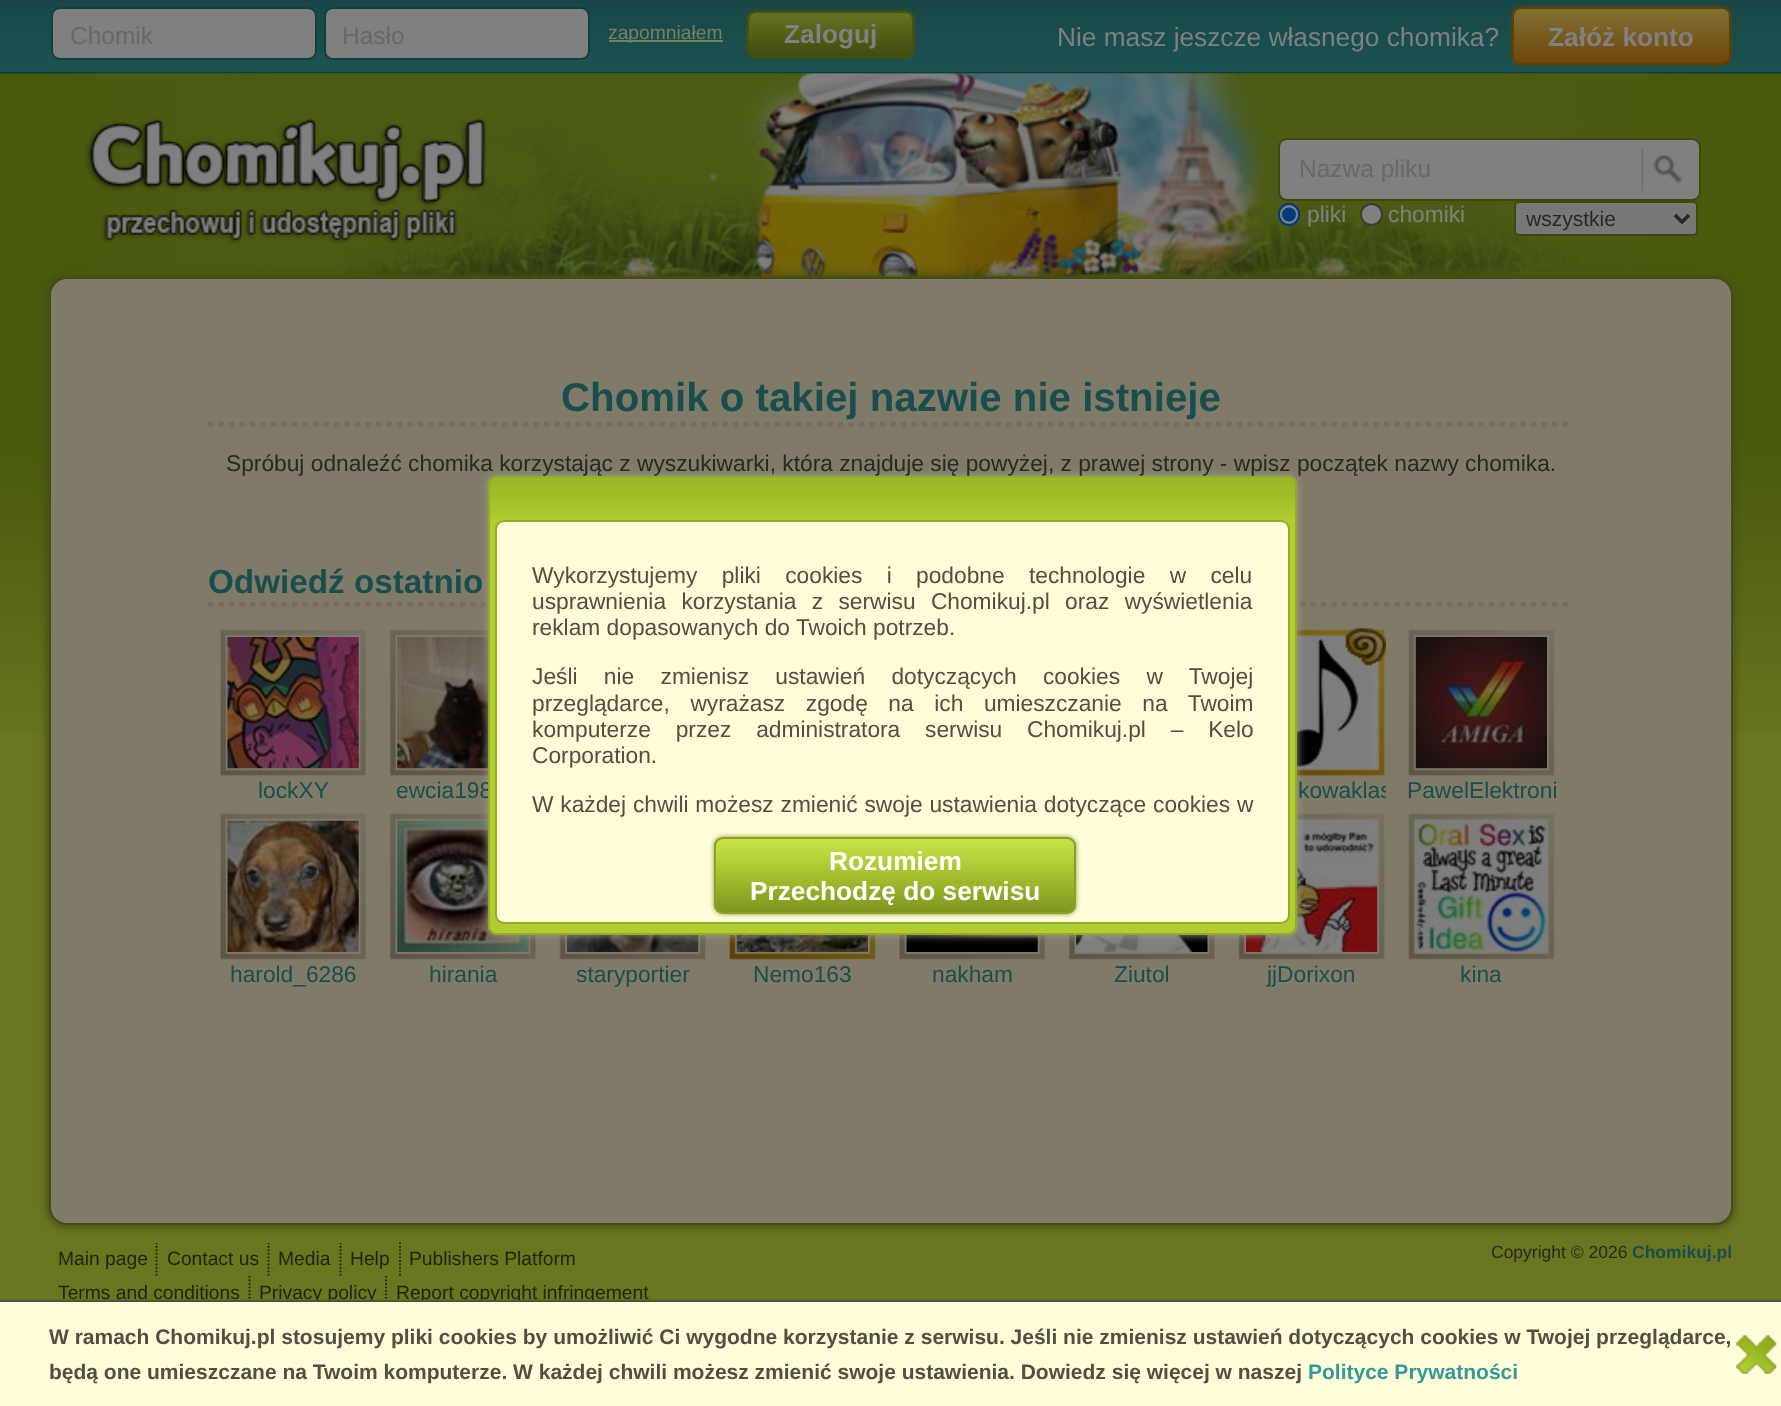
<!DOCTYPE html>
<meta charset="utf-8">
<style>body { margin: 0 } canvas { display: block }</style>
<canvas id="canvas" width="1781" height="1406"></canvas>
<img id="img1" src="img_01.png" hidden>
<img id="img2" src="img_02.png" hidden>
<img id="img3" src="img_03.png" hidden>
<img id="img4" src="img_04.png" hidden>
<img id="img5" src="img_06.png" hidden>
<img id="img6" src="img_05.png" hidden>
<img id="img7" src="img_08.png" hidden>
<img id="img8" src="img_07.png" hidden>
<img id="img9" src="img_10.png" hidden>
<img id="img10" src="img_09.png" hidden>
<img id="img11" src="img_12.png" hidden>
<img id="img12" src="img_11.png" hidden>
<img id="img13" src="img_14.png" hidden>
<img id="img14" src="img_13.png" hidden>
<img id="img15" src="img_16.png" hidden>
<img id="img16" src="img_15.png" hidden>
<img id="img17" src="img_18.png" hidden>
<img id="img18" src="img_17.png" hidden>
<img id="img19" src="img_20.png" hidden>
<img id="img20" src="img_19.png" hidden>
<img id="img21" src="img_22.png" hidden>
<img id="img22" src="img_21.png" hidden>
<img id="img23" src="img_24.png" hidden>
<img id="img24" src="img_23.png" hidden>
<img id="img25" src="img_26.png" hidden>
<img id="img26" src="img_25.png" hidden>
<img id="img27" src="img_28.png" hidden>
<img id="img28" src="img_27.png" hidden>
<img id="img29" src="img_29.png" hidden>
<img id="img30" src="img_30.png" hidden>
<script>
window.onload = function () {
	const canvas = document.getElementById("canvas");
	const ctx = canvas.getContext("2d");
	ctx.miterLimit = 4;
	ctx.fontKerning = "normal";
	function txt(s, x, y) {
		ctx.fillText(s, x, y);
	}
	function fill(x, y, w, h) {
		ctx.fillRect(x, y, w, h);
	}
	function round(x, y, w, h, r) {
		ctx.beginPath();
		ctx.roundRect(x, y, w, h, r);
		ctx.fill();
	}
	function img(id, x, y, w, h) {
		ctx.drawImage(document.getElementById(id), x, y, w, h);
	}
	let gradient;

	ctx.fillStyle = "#6A751F";
	fill(0, 0, 1781, 1406);
	gradient = ctx.createLinearGradient(891, 0, 891, 72);
	gradient.addColorStop(0, "#184646");
	gradient.addColorStop(1, "#1C5353");
	ctx.fillStyle = gradient;
	fill(0, 0, 1781, 72);
	ctx.fillStyle = "#143B3B";
	fill(0, 72, 1781, 2);
	ctx.fillStyle = "#808080";
	ctx.beginPath();
	ctx.roundRect(52, 8, 264, 51, 8);
	ctx.fill();
	ctx.strokeStyle = "#153E3E";
	ctx.lineWidth = 2;
	ctx.stroke();
	ctx.beginPath();
	ctx.roundRect(325, 8, 264, 51, 8);
	ctx.fill();
	ctx.stroke();
	ctx.fillStyle = "#78805F";
	fill(609, 40, 114, 2);
	ctx.fillStyle = "#454D13";
	ctx.filter = "blur(2.5px)";
	ctx.beginPath();
	ctx.roundRect(747, 11, 167, 47, 9);
	ctx.fill();
	ctx.filter = "none";
	ctx.save();
	ctx.beginPath();
	ctx.roundRect(747, 11, 167, 47, 9);
	ctx.clip();
	gradient = ctx.createLinearGradient(830, 12, 830, 56);
	gradient.addColorStop(0, "#637123");
	gradient.addColorStop(0.06, "#637123");
	gradient.addColorStop(0.61, "#4E5C15");
	gradient.addColorStop(0.83, "#455312");
	gradient.addColorStop(1, "#3F4B10");
	ctx.fillStyle = gradient;
	fill(747, 12, 167, 44);
	ctx.restore();
	ctx.beginPath();
	ctx.roundRect(748, 12, 165, 45, 8);
	ctx.strokeStyle = "#455112";
	ctx.stroke();
	img("img1", 0, 73, 1781, 661);
	ctx.filter = "blur(2.5px)";
	ctx.beginPath();
	ctx.roundRect(1512, 7, 219, 58, 9);
	ctx.fill();
	ctx.filter = "none";
	ctx.save();
	ctx.beginPath();
	ctx.roundRect(1512, 7, 219, 58, 9);
	ctx.clip();
	gradient = ctx.createLinearGradient(1621, 9, 1621, 63);
	gradient.addColorStop(0, "#807034");
	gradient.addColorStop(1, "#6F460A");
	ctx.fillStyle = gradient;
	fill(1512, 9, 219, 54);
	ctx.restore();
	ctx.beginPath();
	ctx.roundRect(1513, 8, 217, 56, 8);
	ctx.strokeStyle = "#653C0B";
	ctx.stroke();
	img("img2", 62, 73, 1635, 204);
	img("img3", 85, 118, 402, 126);
	ctx.fillStyle = "#808080";
	ctx.beginPath();
	ctx.roundRect(1279, 139, 421, 61, 8);
	ctx.fill();
	ctx.strokeStyle = "#3E4910";
	ctx.stroke();
	img("img4", 1641, 148, 42, 43);
	ctx.fillStyle = "#787878";
	ctx.beginPath();
	ctx.roundRect(1515, 202, 182, 33, 4);
	ctx.fill();
	ctx.stroke();
	ctx.beginPath();
	ctx.moveTo(1675, 215);
	ctx.lineTo(1682, 222);
	ctx.lineTo(1689, 215);
	ctx.strokeStyle = "#292821";
	ctx.lineWidth = 3.5;
	ctx.stroke();
	ctx.fillStyle = "#808080";
	ctx.beginPath();
	ctx.roundRect(1279, 204, 20, 21, 10);
	ctx.fill();
	ctx.strokeStyle = "#003B80";
	ctx.lineWidth = 2;
	ctx.stroke();
	ctx.fillStyle = "#003B80";
	ctx.beginPath();
	ctx.arc(1289, 214.5, 7, 0, Math.PI * 2);
	ctx.fill();
	ctx.fillStyle = "#808080";
	ctx.beginPath();
	ctx.arc(1371.5, 214.5, 10.5, 0, Math.PI * 2);
	ctx.fill();
	ctx.strokeStyle = "#3B3B3B";
	ctx.stroke();
	ctx.fillStyle = "#454D13";
	ctx.filter = "blur(4.5px)";
	ctx.beginPath();
	ctx.roundRect(47, 275, 1687, 952, 19);
	ctx.fill();
	ctx.filter = "none";
	ctx.fillStyle = "#807B69";
	ctx.beginPath();
	ctx.roundRect(50, 278, 1682, 946, 17);
	ctx.fill();
	ctx.strokeStyle = "#444D13";
	ctx.stroke();
	ctx.beginPath();
	ctx.moveTo(208, 424.5);
	ctx.lineTo(1573, 424.5);
	ctx.strokeStyle = "#736F5E";
	ctx.lineWidth = 5.2;
	ctx.setLineDash([5.25, 5.25]);
	ctx.stroke();
	ctx.beginPath();
	ctx.moveTo(208, 604.5);
	ctx.lineTo(1573, 604.5);
	ctx.stroke();
	img("img5", 227, 637, 132, 132);
	img("img6", 220, 629, 147, 147);
	img("img7", 397, 637, 91, 132);
	img("img8", 389, 629, 99, 147);
	img("img9", 1297, 637, 81, 132);
	img("img10", 1297, 628, 89, 148);
	img("img11", 1415, 637, 132, 132);
	img("img12", 1408, 629, 147, 147);
	img("img13", 227, 820, 132, 132);
	img("img14", 220, 813, 147, 147);
	img("img15", 397, 820, 132, 132);
	img("img16", 389, 813, 147, 147);
	img("img17", 567, 935, 132, 17);
	img("img18", 559, 935, 147, 25);
	img("img19", 736, 935, 132, 17);
	img("img20", 729, 935, 147, 25);
	img("img21", 906, 935, 132, 17);
	img("img22", 899, 935, 147, 25);
	img("img23", 1076, 935, 132, 17);
	img("img24", 1068, 935, 147, 25);
	img("img25", 1246, 820, 132, 132);
	img("img26", 1238, 813, 147, 147);
	img("img27", 1415, 820, 132, 132);
	img("img28", 1408, 813, 147, 147);
	ctx.save();
	ctx.beginPath();
	ctx.rect(49, 1243, 1684, 66);
	ctx.clip();
	ctx.beginPath();
	ctx.moveTo(156.5, 1242.5);
	ctx.lineTo(156.5, 1276);
	ctx.strokeStyle = "#1F2507";
	ctx.lineWidth = 1.8;
	ctx.setLineDash([1.75, 1.75]);
	ctx.stroke();
	ctx.beginPath();
	ctx.moveTo(268.5, 1242.5);
	ctx.lineTo(268.5, 1276);
	ctx.stroke();
	ctx.beginPath();
	ctx.moveTo(340.5, 1242.5);
	ctx.lineTo(340.5, 1276);
	ctx.stroke();
	ctx.restore();
	ctx.beginPath();
	ctx.moveTo(400, 1242.5);
	ctx.lineTo(400, 1276);
	ctx.strokeStyle = "#1F2507";
	ctx.lineWidth = 1.8;
	ctx.setLineDash([1.75, 1.75]);
	ctx.stroke();
	ctx.beginPath();
	ctx.moveTo(249.5, 1276);
	ctx.lineTo(249.5, 1309);
	ctx.stroke();
	ctx.beginPath();
	ctx.moveTo(386, 1276);
	ctx.lineTo(386, 1309);
	ctx.stroke();
	ctx.fillStyle = "#A39D85";
	ctx.filter = "blur(4.5px)";
	ctx.beginPath();
	ctx.roundRect(488, 476, 809, 459, 9);
	ctx.fill();
	ctx.filter = "none";
	ctx.font = "24.5px Liberation Sans";
	ctx.fillStyle = "#686868";
	txt("Chomik", 70, 44);
	txt("Hasło", 342, 44);
	ctx.font = "19.25px Liberation Sans";
	ctx.fillStyle = "#78805F";
	txt("zapomniałem", 608, 39);
	ctx.font = "bold 26.25px Liberation Sans";
	ctx.fillStyle = "#808080";
	txt("Zaloguj", 784, 43);
	ctx.font = "26.25px Liberation Sans";
	txt("Nie masz jeszcze własnego chomika?", 1057, 46);
	ctx.font = "bold 26.25px Liberation Sans";
	txt("Załóż konto", 1548, 46);
	ctx.font = "24.5px Liberation Sans";
	ctx.fillStyle = "#686868";
	txt("Nazwa pliku", 1299, 177);
	ctx.font = "21px Liberation Sans";
	ctx.fillStyle = "#292821";
	txt("wszystkie", 1526, 226);
	ctx.font = "22.75px Liberation Sans";
	ctx.fillStyle = "#808080";
	txt("pliki", 1307, 222);
	txt("chomiki", 1388, 222);
	ctx.font = "bold 40.25px Liberation Sans";
	ctx.fillStyle = "#1A4D4D";
	txt("Chomik o takiej nazwie nie istnieje", 561, 411);
	ctx.font = "22.75px Liberation Sans";
	ctx.fillStyle = "#292821";
	txt("Spróbuj odnaleźć chomika korzystając z wyszukiwarki, która znajduje się powyżej, z prawej strony - wpisz początek nazwy chomika.", 226, 471);
	ctx.font = "bold 33.25px Liberation Sans";
	ctx.fillStyle = "#1A4D4D";
	txt("Odwiedź ostatnio", 208, 593);
	ctx.font = "22.75px Liberation Sans";
	txt("lockXY", 258, 798);
	txt("ewcia198", 396, 798);
	ctx.save();
	ctx.beginPath();
	ctx.rect(1237, 777, 149, 26);
	ctx.clip();
	txt("kowaklas", 1298, 798);
	ctx.restore();
	txt("PawelElektroni", 1407, 798);
	txt("harold_6286", 230, 982);
	txt("hirania", 429, 982);
	txt("staryportier", 576, 982);
	txt("Nemo163", 753, 982);
	txt("nakham", 932, 982);
	txt("Ziutol", 1114, 982);
	txt("jjDorixon", 1267, 982);
	txt("kina", 1460, 982);
	ctx.font = "19.25px Liberation Sans";
	ctx.fillStyle = "#1F2507";
	txt("Main page", 58, 1265);
	txt("Contact us", 167, 1265);
	txt("Media", 278, 1265);
	txt("Help", 350, 1265);
	txt("Publishers Platform", 409, 1265);
	txt("Terms and conditions", 58, 1299);
	txt("Privacy policy", 259, 1299);
	txt("Report copyright infringement", 396, 1299);
	ctx.font = "17.5px Liberation Sans";
	ctx.fillStyle = "#292821";
	txt("Copyright © 2026", 1491, 1258);
	ctx.font = "bold 17.5px Liberation Sans";
	ctx.fillStyle = "#1A4D4D";
	txt("Chomikuj.pl", 1632, 1258);
	ctx.fillStyle = "#B2CD31";
	round(488, 476, 809, 459, 9);
	img("img29", 488, 477, 809, 41);
	ctx.beginPath();
	ctx.roundRect(489, 477, 807, 457, 8);
	ctx.strokeStyle = "#91AC26";
	ctx.lineWidth = 2;
	ctx.setLineDash([]);
	ctx.stroke();
	ctx.fillStyle = "#FFFCDA";
	ctx.beginPath();
	ctx.roundRect(496, 521, 793, 402, 8);
	ctx.fill();
	ctx.stroke();
	ctx.wordSpacing = "18px";
	ctx.font = "22.75px Liberation Sans";
	ctx.fillStyle = "#524F42";
	txt("Wykorzystujemy pliki cookies i podobne technologie w celu", 532, 583);
	ctx.wordSpacing = "9px";
	txt("usprawnienia korzystania z serwisu Chomikuj.pl oraz wyświetlenia", 532, 609);
	ctx.wordSpacing = "0px";
	txt("reklam dopasowanych do Twoich potrzeb.", 532, 635);
	ctx.wordSpacing = "20px";
	txt("Jeśli nie zmienisz ustawień dotyczących cookies w Twojej", 532, 684);
	ctx.wordSpacing = "14.25px";
	txt("przeglądarce, wyrażasz zgodę na ich umieszczanie na Twoim", 532, 711);
	ctx.wordSpacing = "18.5px";
	txt("komputerze przez administratora serwisu Chomikuj.pl – Kelo", 532, 737);
	ctx.wordSpacing = "0px";
	txt("Corporation.", 532, 763);
	ctx.wordSpacing = "0.5px";
	txt("W każdej chwili możesz zmienić swoje ustawienia dotyczące cookies w", 532, 812);
	ctx.fillStyle = "#899926";
	ctx.filter = "blur(2.5px)";
	ctx.beginPath();
	ctx.roundRect(714, 837, 362, 77, 9);
	ctx.fill();
	ctx.filter = "none";
	ctx.save();
	ctx.beginPath();
	ctx.roundRect(714, 837, 362, 77, 9);
	ctx.clip();
	gradient = ctx.createLinearGradient(895, 838, 895, 912);
	gradient.addColorStop(0, "#C6E146");
	gradient.addColorStop(0.06, "#C6E146");
	gradient.addColorStop(0.61, "#9CB829");
	gradient.addColorStop(0.83, "#8AA524");
	gradient.addColorStop(1, "#7D9520");
	ctx.fillStyle = gradient;
	fill(714, 838, 362, 74);
	ctx.restore();
	ctx.beginPath();
	ctx.roundRect(715, 838, 360, 75, 8);
	ctx.strokeStyle = "#89A224";
	ctx.stroke();
	ctx.wordSpacing = "0px";
	ctx.font = "bold 26.25px Liberation Sans";
	ctx.fillStyle = "#FFFFFF";
	txt("Rozumiem", 829, 870);
	txt("Przechodzę do serwisu", 750, 900);
	ctx.fillStyle = "#FFFCDA";
	fill(0, 1302, 1781, 104);
	ctx.fillStyle = "#524F42";
	fill(0, 1300, 1781, 2);
	ctx.font = "bold 21px Liberation Sans";
	txt("W ramach Chomikuj.pl stosujemy pliki cookies by umożliwić Ci wygodne korzystanie z serwisu. Jeśli nie zmienisz ustawień dotyczących cookies w Twojej przeglądarce,", 49, 1344);
	img("img30", 1736, 1334, 41, 40);
	txt("będą one umieszczane na Twoim komputerze. W każdej chwili możesz zmienić swoje ustawienia. Dowiedz się więcej w naszej", 49, 1379);
	ctx.fillStyle = "#339999";
	txt("Polityce Prywatności", 1308, 1379);
};
</script>
